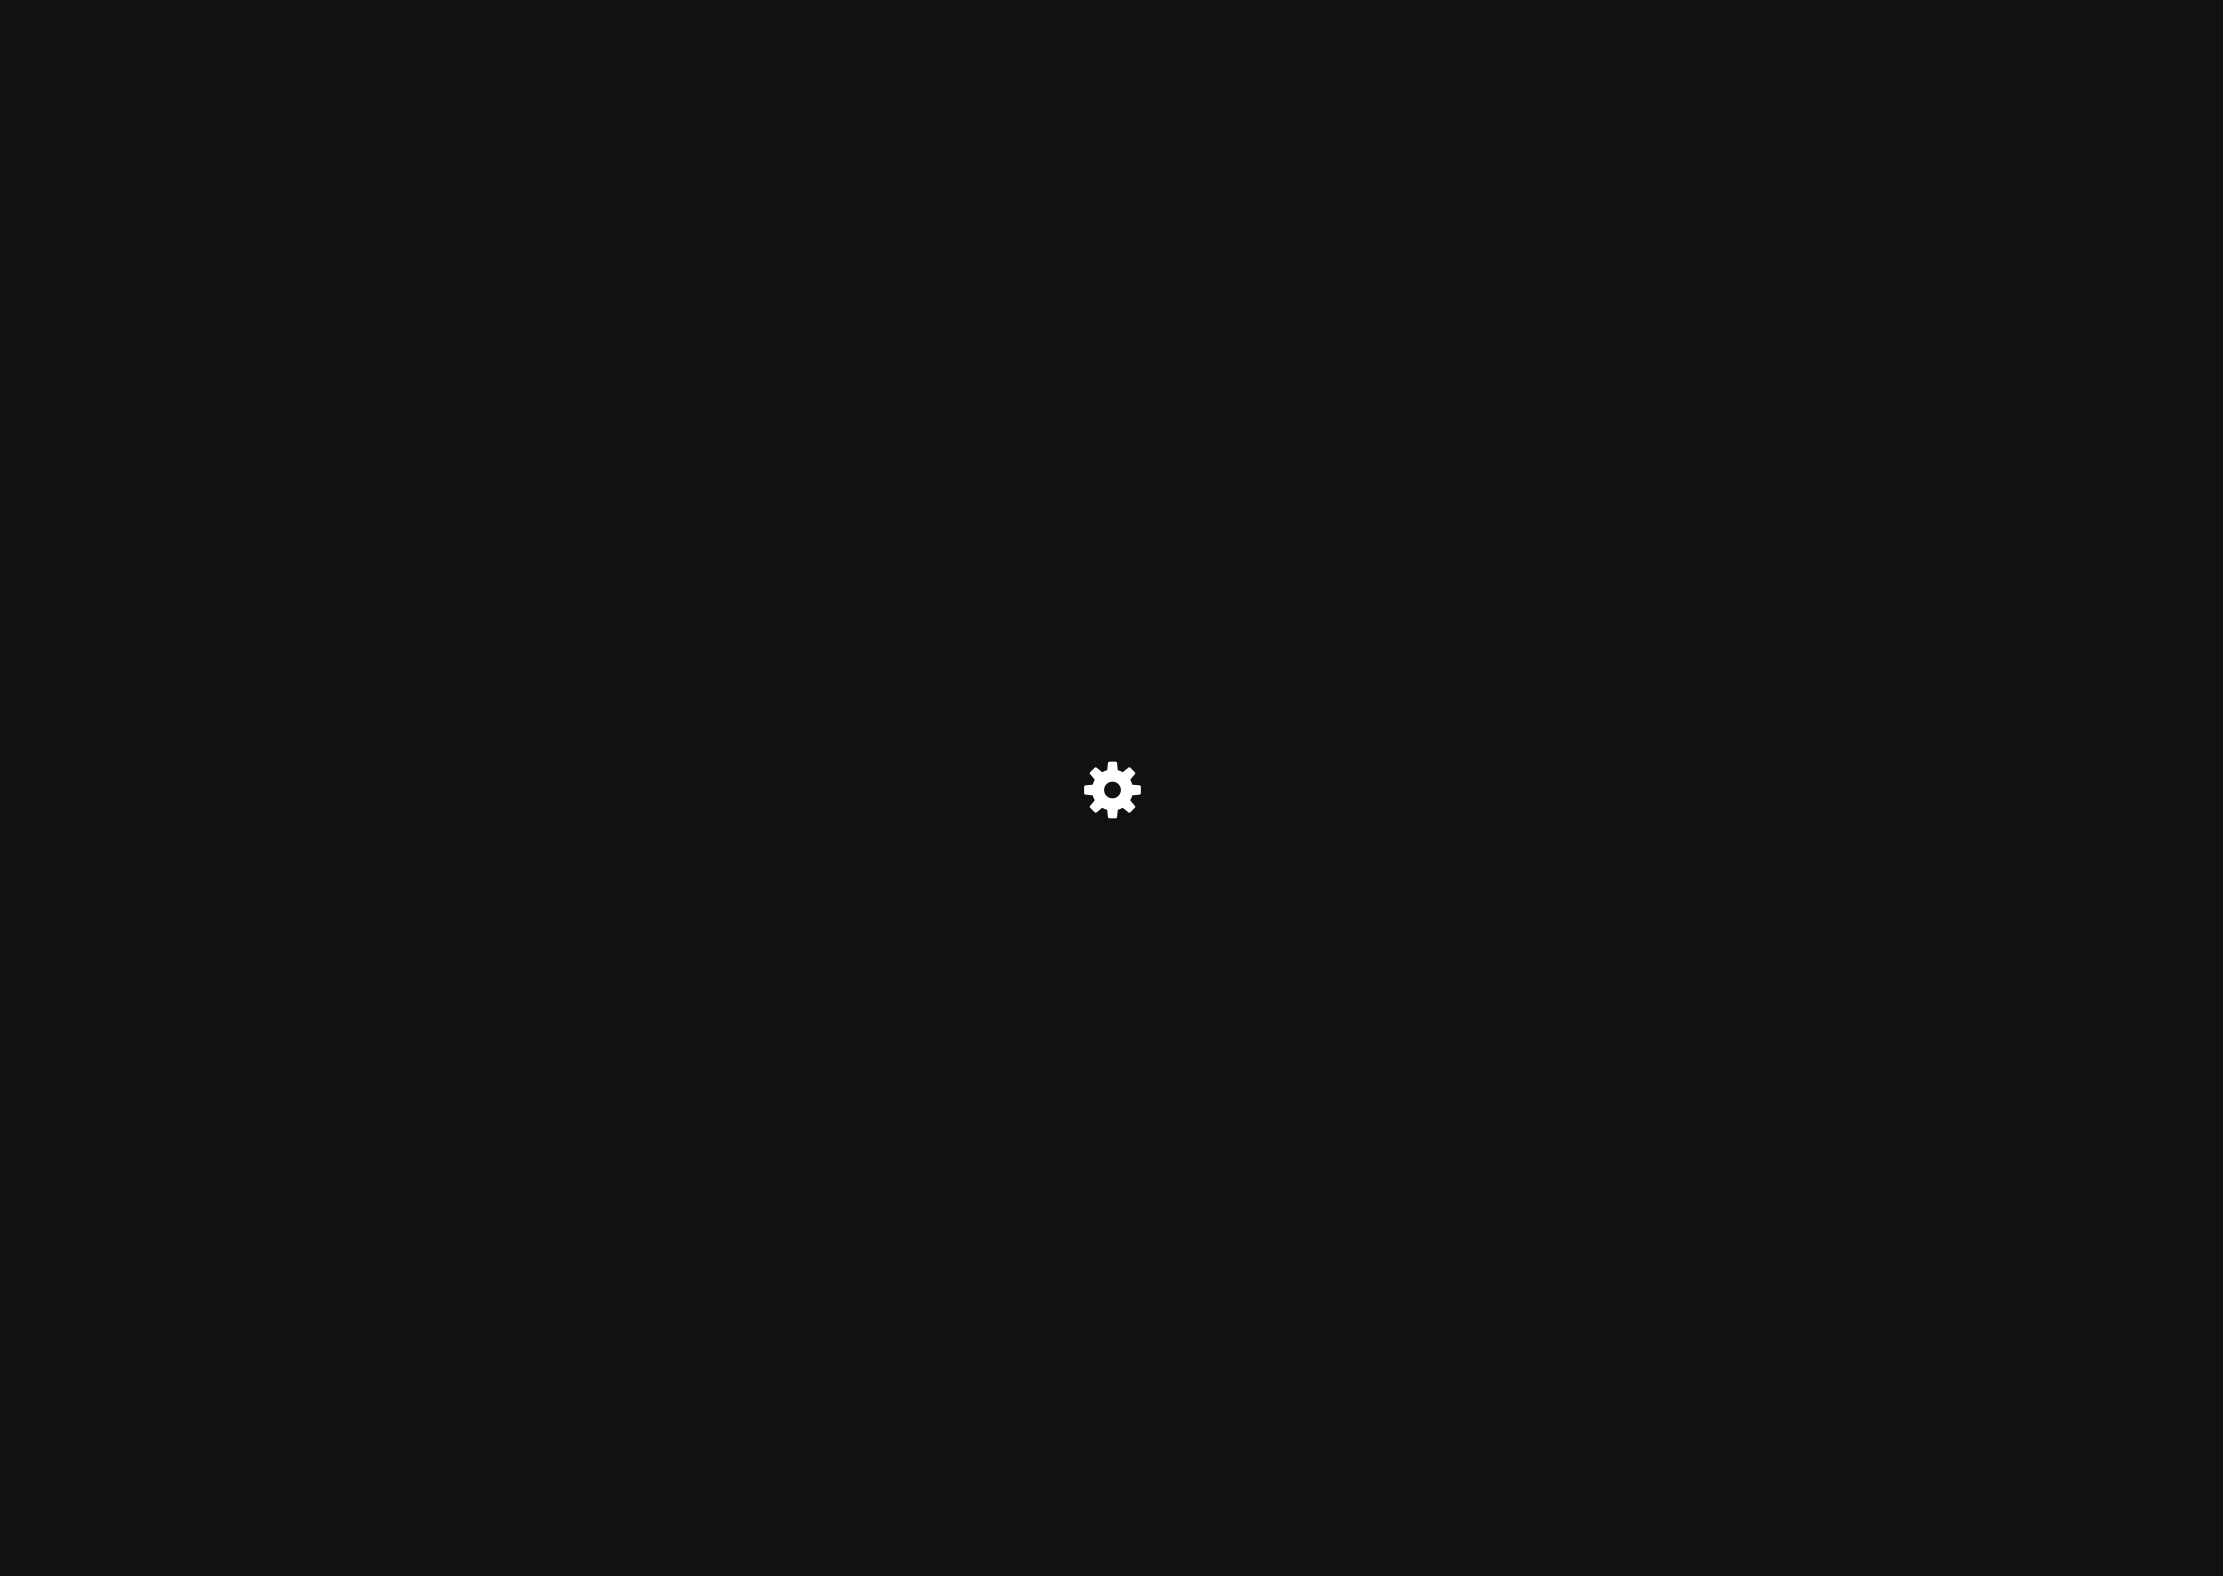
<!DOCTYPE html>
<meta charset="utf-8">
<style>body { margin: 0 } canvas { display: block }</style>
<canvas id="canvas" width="2223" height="1576"></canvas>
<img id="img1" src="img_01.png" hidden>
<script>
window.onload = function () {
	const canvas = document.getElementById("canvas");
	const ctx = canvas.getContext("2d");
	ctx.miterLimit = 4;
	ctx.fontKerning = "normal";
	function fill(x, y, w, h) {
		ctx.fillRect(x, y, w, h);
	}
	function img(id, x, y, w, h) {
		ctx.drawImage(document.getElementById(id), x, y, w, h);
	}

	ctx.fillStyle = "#111111";
	fill(0, 0, 2223, 1576);
	img("img1", 1084, 761, 57, 58);
};
</script>
